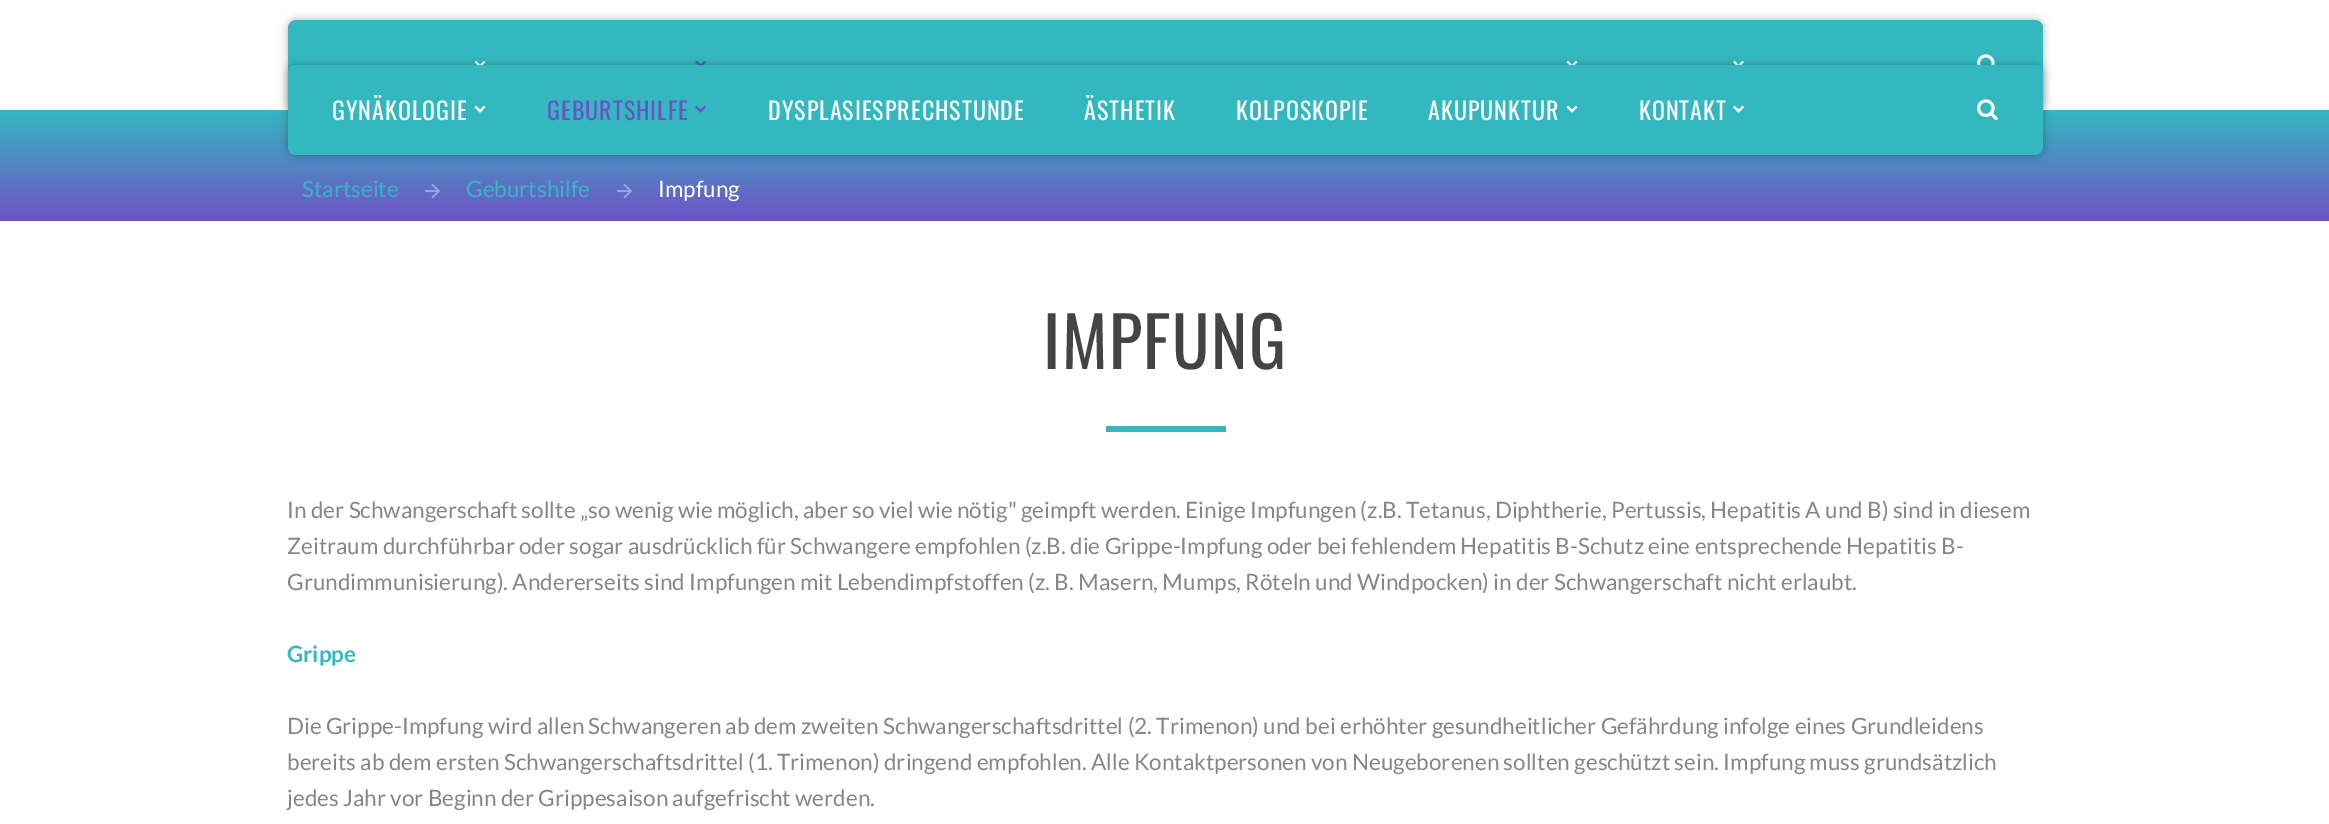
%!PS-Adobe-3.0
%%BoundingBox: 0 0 2329 824
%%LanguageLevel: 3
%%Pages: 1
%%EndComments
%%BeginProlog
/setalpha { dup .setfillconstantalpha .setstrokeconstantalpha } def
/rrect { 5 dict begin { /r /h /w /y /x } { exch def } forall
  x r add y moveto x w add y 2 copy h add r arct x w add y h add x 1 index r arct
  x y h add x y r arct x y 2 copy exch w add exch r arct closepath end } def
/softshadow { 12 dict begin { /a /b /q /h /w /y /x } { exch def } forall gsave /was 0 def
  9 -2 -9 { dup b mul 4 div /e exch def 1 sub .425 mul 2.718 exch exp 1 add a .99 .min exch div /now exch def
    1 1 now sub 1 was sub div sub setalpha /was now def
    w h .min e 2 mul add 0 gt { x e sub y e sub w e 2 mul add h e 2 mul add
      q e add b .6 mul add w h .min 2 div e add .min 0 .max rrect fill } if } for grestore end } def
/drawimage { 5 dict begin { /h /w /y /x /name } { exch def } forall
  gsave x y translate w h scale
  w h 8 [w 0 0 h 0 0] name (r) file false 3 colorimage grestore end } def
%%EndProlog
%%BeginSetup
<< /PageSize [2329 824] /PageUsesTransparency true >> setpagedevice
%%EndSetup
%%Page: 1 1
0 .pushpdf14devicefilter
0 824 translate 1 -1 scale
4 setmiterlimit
1 setgray
0 0 2329 824 rectfill
gsave newpath 0 110 moveto 2329 110 lineto 2329 221 lineto 0 221 lineto closepath clip newpath
<< /ShadingType 2 /ColorSpace /DeviceRGB /Coords [1165 109 1165 221] /Extend [true true] /Function << /FunctionType 2 /Domain [0 1] /C0 [0.204 0.722 0.753] /C1 [0.435 0.318 0.78] /N 1 >> >> shfill grestore
0 setgray
288 20 1755 90 8 4.5 0.3 softshadow
0.204 0.722 0.753 setrgbcolor
288 20 1755 90 8 rrect fill
(images/1.raw) 474 60 12 5 drawimage
(images/2.raw) 695 60 11 5 drawimage
(images/1.raw) 1566 60 12 5 drawimage
(images/3.raw) 1733 60 11 5 drawimage
(images/4.raw) 1977 54 18 11 drawimage
0 setgray
288 65 1755 90 8 4.5 0.3 softshadow
0.204 0.722 0.753 setrgbcolor
288 65 1755 90 8 rrect fill
(images/5.raw) 474 105 12 8 drawimage
(images/6.raw) 695 105 11 8 drawimage
(images/5.raw) 1566 105 12 8 drawimage
(images/7.raw) 1733 105 11 8 drawimage
(images/8.raw) 1977 99 21 22 drawimage
(images/9.raw) 425 183 15 16 drawimage
(images/9.raw) 617 183 15 16 drawimage
1106 426 120 6 rectfill
/Oswald-Regular [24 0 0 -24 0 0] selectfont
1 setgray
332 120 moveto 1 0 (GYNÄKOLOGIE) ashow
0.435 0.318 0.78 setrgbcolor
547 120 moveto 1 0 (GEBURTSHILFE) ashow
1 setgray
768 120 moveto 1 0 (DYSPLASIESPRECHSTUNDE) ashow
1084 120 moveto 1 0 (ÄSTHETIK) ashow
1236 120 moveto 1 0 (KOLPOSKOPIE) ashow
1428 120 moveto 1 0 (AKUPUNKTUR) ashow
1639 120 moveto 1 0 (KONTAKT) ashow
/Lato-Regular [22.5 0 0 -22.5 0 0] selectfont
0.204 0.722 0.753 setrgbcolor
302 197 moveto (Startseite) show
466 197 moveto (Geburtshilfe) show
1 setgray
658 197 moveto (Impfung) show
/Oswald-Regular [69 0 0 -69 0 0] selectfont
0.263 0.267 0.271 setrgbcolor
1043 369 moveto 1.5 0 (IMPFUNG) ashow
/Lato-Regular [22.5 0 0 -22.5 0 0] selectfont
0.525 setgray
287 518 moveto (In der Schwangerschaft sollte „so wenig wie möglich, aber so viel wie nötig" geimpft werden. Einige Impfungen \(z.B. Tetanus, Diphtherie, Pertussis, Hepatitis A und B\) sind in diesem) show
287 554 moveto (Zeitraum durchführbar oder sogar ausdrücklich für Schwangere empfohlen \(z.B. die Grippe-Impfung oder bei fehlendem Hepatitis B-Schutz eine entsprechende Hepatitis B-) show
287 590 moveto (Grundimmunisierung\). Andererseits sind Impfungen mit Lebendimpfstoffen \(z. B. Masern, Mumps, Röteln und Windpocken\) in der Schwangerschaft nicht erlaubt.) show
/Lato-Bold [22.5 0 0 -22.5 0 0] selectfont
0.204 0.722 0.753 setrgbcolor
287 662 moveto (Grippe) show
/Lato-Regular [22.5 0 0 -22.5 0 0] selectfont
0.525 setgray
287 734 moveto (Die Grippe-Impfung wird allen Schwangeren ab dem zweiten Schwangerschaftsdrittel \(2. Trimenon\) und bei erhöhter gesundheitlicher Gefährdung infolge eines Grundleidens) show
287 770 moveto (bereits ab dem ersten Schwangerschaftsdrittel \(1. Trimenon\) dringend empfohlen. Alle Kontaktpersonen von Neugeborenen sollten geschützt sein. Impfung muss grundsätzlich) show
287 806 moveto (jedes Jahr vor Beginn der Grippesaison aufgefrischt werden.) show
.poppdf14devicefilter showpage
%%EOF
